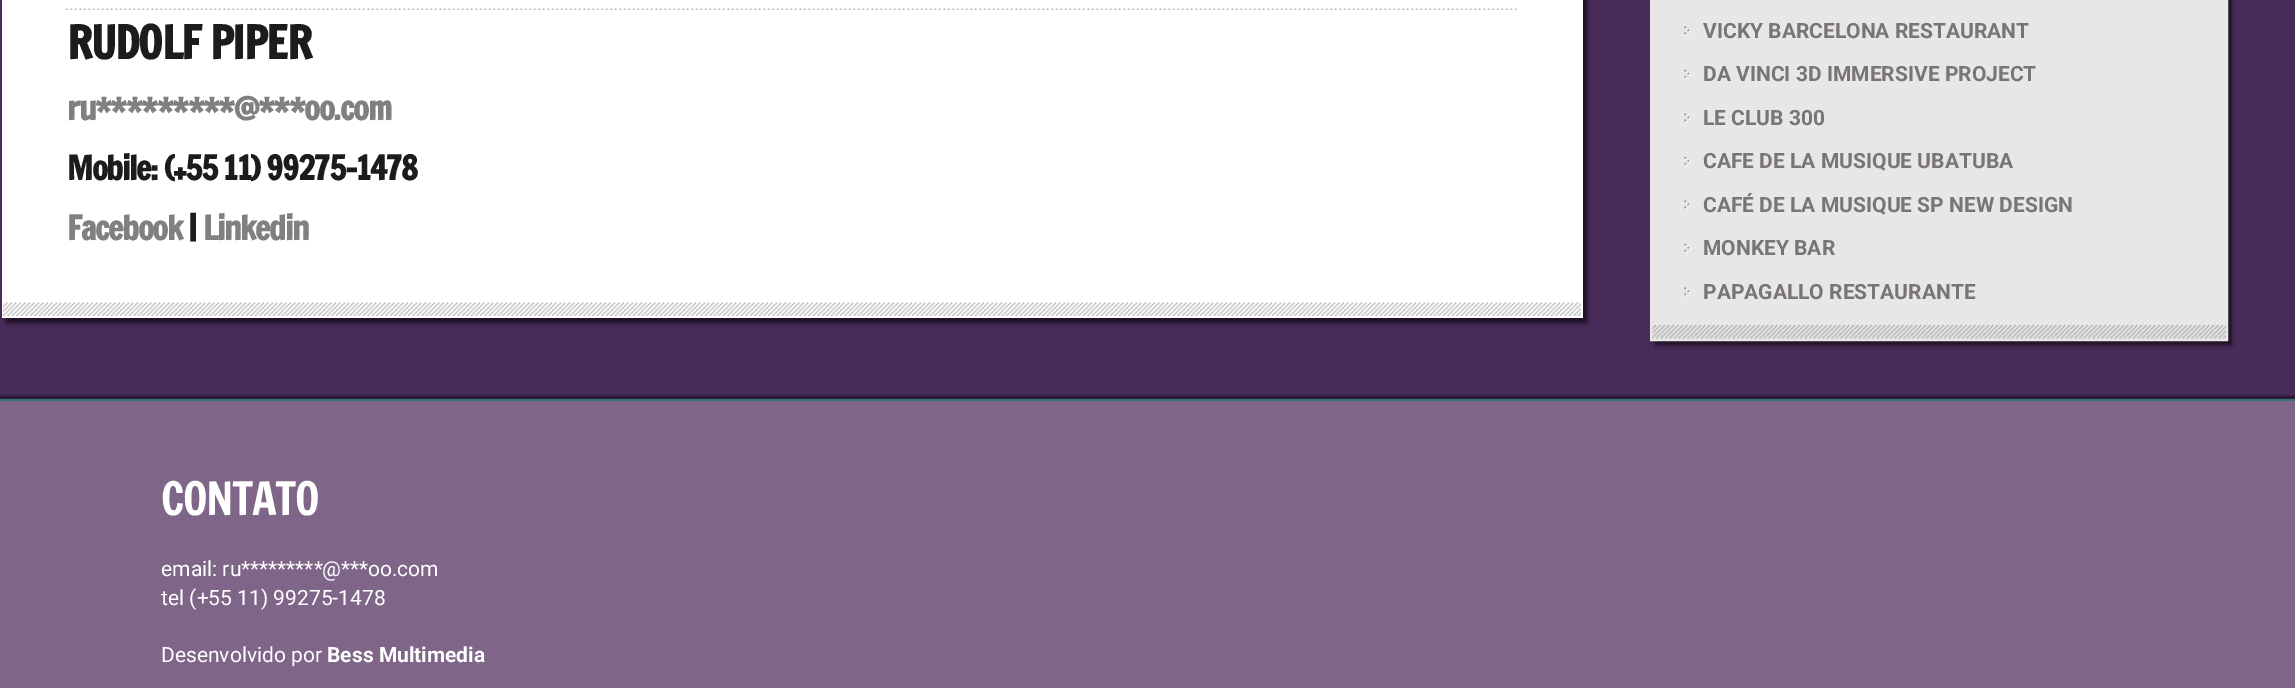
%!PS-Adobe-3.0
%%BoundingBox: 0 0 2295 688
%%LanguageLevel: 3
%%Pages: 1
%%EndComments
%%BeginProlog
/setalpha { dup .setfillconstantalpha .setstrokeconstantalpha } def
/rrect { 5 dict begin { /r /h /w /y /x } { exch def } forall
  x r add y moveto x w add y 2 copy h add r arct x w add y h add x 1 index r arct
  x y h add x y r arct x y 2 copy exch w add exch r arct closepath end } def
/softshadow { 12 dict begin { /a /b /q /h /w /y /x } { exch def } forall gsave /was 0 def
  9 -2 -9 { dup b mul 4 div /e exch def 1 sub .425 mul 2.718 exch exp 1 add a .99 .min exch div /now exch def
    1 1 now sub 1 was sub div sub setalpha /was now def
    w h .min e 2 mul add 0 gt { x e sub y e sub w e 2 mul add h e 2 mul add
      q e add b .6 mul add w h .min 2 div e add .min 0 .max rrect fill } if } for grestore end } def
/drawimage { 5 dict begin { /h /w /y /x /name } { exch def } forall
  gsave x y translate w h scale
  w h 8 [w 0 0 h 0 0] name (r) file false 3 colorimage grestore end } def
%%EndProlog
%%BeginSetup
<< /PageSize [2295 688] /PageUsesTransparency true >> setpagedevice
%%EndSetup
%%Page: 1 1
0 .pushpdf14devicefilter
0 688 translate 1 -1 scale
4 setmiterlimit
0.498 0.4 0.537 setrgbcolor
0 0 2295 688 rectfill
0.278 0.169 0.349 setrgbcolor
0 0 2295 399 rectfill
0 setgray
6 -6 1581 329 0 2 0.6 softshadow
1 setgray
2 0 1581 318 rectfill
(images/1.raw) 3 302 1578 14 drawimage
(images/2.raw) 66 8 1451 2 drawimage
0 setgray
1655 -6 577 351 0 2 0.6 softshadow
0.906 setgray
1652 0 574 339 rectfill
(images/3.raw) 1652 325 574 14 drawimage
2 setlinewidth
1651 -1 576 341 rectstroke
(images/4.raw) 1684 26 7 10 drawimage
(images/5.raw) 1684 70 7 9 drawimage
(images/4.raw) 1684 113 7 10 drawimage
(images/5.raw) 1684 157 7 9 drawimage
(images/4.raw) 1684 200 7 10 drawimage
(images/5.raw) 1684 244 7 9 drawimage
(images/4.raw) 1684 287 7 10 drawimage
(images/6.raw) 0 394 2295 5 drawimage
0.2 0.459 0.467 setrgbcolor
0 399 2295 2 rectfill
/FrancoisOne-Bold [45 0 0 -45 0 0] selectfont
0.11 setgray
67 59 moveto -1.5 0 (RUDOLF PIPER) ashow
/FrancoisOne-Bold [33 0 0 -33 0 0] selectfont
0.502 setgray
67 120 moveto -1.5 0 (ru) ashow
234 120 moveto -1.5 0 (@***) ashow
95 120 moveto -1.5 0 (*********) ashow
304 120 moveto -1.5 0 (oo.com) ashow
0.11 setgray
67 180 moveto -1.5 0 (Mobile: \(+55 11\) 99275-1478) ashow
0.502 setgray
67 240 moveto -1.5 0 (Facebook) ashow
0.11 setgray
188 240 moveto -1.5 0 (|) ashow
0.502 setgray
203 240 moveto -1.5 0 (Linkedin) ashow
/Roboto-Bold [21 0 0 -21 0 0] selectfont
0.478 0.459 0.459 setrgbcolor
1703 38 moveto (VICKY BARCELONA RESTAURANT) show
1703 81 moveto (DA VINCI 3D IMMERSIVE PROJECT) show
1703 125 moveto (LE CLUB 300) show
1703 168 moveto (CAFE DE LA MUSIQUE UBATUBA) show
1703 212 moveto (CAFÉ DE LA MUSIQUE SP NEW DESIGN) show
1703 255 moveto (MONKEY BAR) show
1703 299 moveto (PAPAGALLO RESTAURANTE) show
/FrancoisOne-Regular [45 0 0 -45 0 0] selectfont
1 setgray
161 515 moveto -1.5 0 (CONTATO) ashow
/Roboto-Regular [21 0 0 -21 0 0] selectfont
161 576 moveto (email: ru*********) show
322 576 moveto (@***) show
368 576 moveto (oo.com) show
161 605 moveto (tel \(+55 11\) 99275-1478) show
161 662 moveto (Desenvolvido por) show
/Roboto-Bold [21 0 0 -21 0 0] selectfont
327 662 moveto (Bess Multimedia) show
.poppdf14devicefilter showpage
%%EOF
